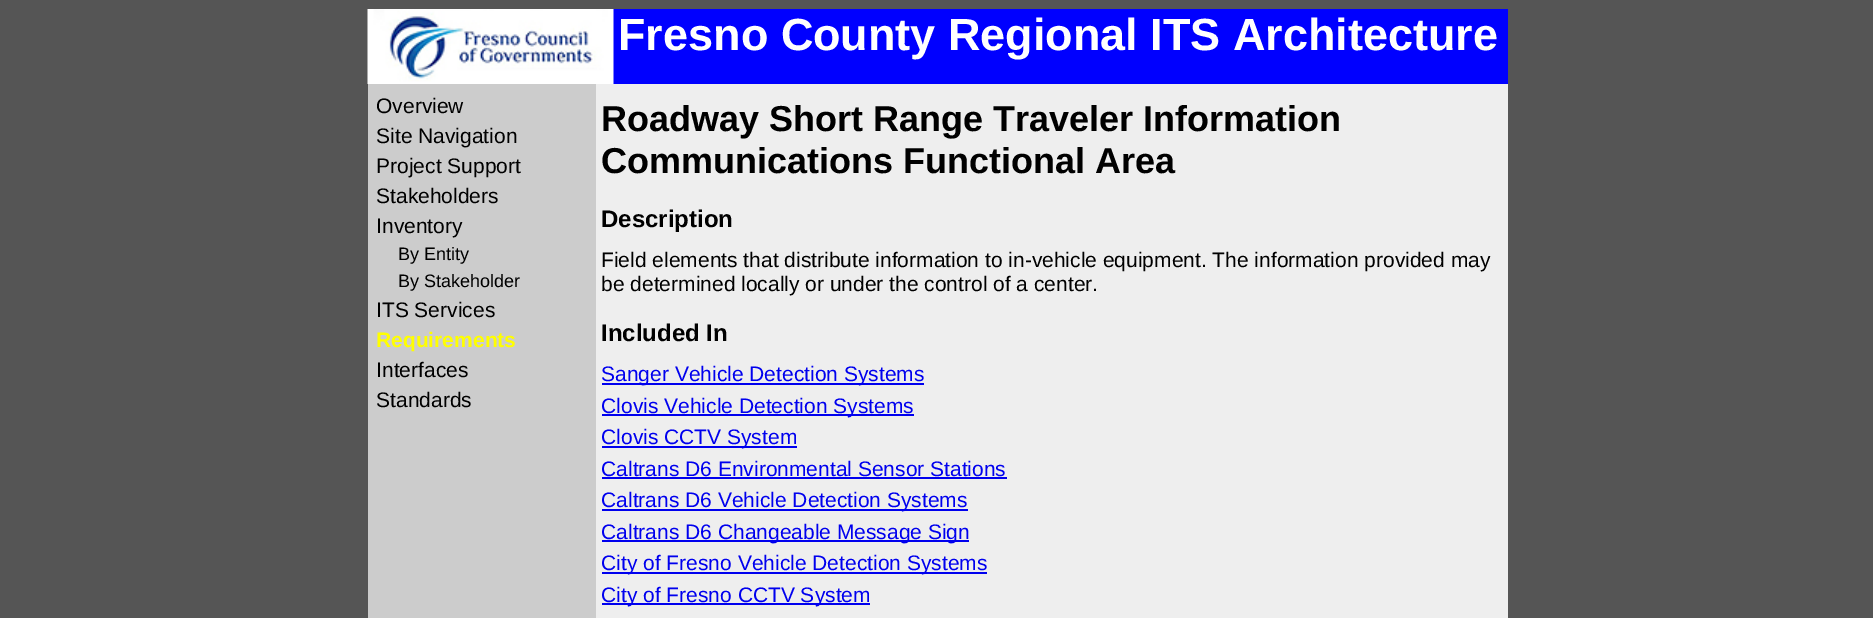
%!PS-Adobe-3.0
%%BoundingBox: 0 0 1873 618
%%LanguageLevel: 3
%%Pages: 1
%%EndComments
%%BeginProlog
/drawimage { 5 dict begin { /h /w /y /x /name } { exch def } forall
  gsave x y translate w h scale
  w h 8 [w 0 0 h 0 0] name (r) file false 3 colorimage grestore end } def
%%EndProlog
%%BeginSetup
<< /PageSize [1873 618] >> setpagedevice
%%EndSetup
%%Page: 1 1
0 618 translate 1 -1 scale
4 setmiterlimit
0.333 setgray
0 0 1873 618 rectfill
0.8 setgray
368 84 228 534 rectfill
0 0 1 setrgbcolor
613 9 895 75 rectfill
(images/1.raw) 367 9 247 75 drawimage
0.933 setgray
596 84 912 534 rectfill
0 0 0.933 setrgbcolor
602 383 322 2 rectfill
602 414 312 2 rectfill
602 446 195 2 rectfill
602 477 405 2 rectfill
602 509 366 2 rectfill
602 540 367 2 rectfill
602 572 385 2 rectfill
602 603 268 2 rectfill
/LiberationSans-Bold [45 0 0 -45 0 0] selectfont
1 setgray
618 50 moveto (Fresno County Regional ITS Architecture) show
/LiberationSans-Regular [21 0 0 -21 0 0] selectfont
0 setgray
376 113 moveto (Overview) show
376 143 moveto (Site Navigation) show
376 173 moveto (Project Support) show
376 203 moveto (Stakeholders) show
376 233 moveto (Inventory) show
/LiberationSans-Regular [18 0 0 -18 0 0] selectfont
398 260 moveto (By Entity) show
398 287 moveto (By Stakeholder) show
/LiberationSans-Regular [21 0 0 -21 0 0] selectfont
376 317 moveto (ITS Services) show
/LiberationSans-Bold [21 0 0 -21 0 0] selectfont
1 1 0 setrgbcolor
376 347 moveto (Requirements) show
/LiberationSans-Regular [21 0 0 -21 0 0] selectfont
0 setgray
376 377 moveto (Interfaces) show
376 407 moveto (Standards) show
/LiberationSans-Bold [36 0 0 -36 0 0] selectfont
601 131 moveto (Roadway Short Range Traveler Information) show
601 173 moveto (Communications Functional Area) show
/LiberationSans-Bold [24 0 0 -24 0 0] selectfont
601 227 moveto (Description) show
/LiberationSans-Regular [21 0 0 -21 0 0] selectfont
601 267 moveto (Field elements that distribute information to in-vehicle equipment. The information provided may) show
601 291 moveto (be determined locally or under the control of a center.) show
/LiberationSans-Bold [24 0 0 -24 0 0] selectfont
601 341 moveto (Included In) show
/LiberationSans-Regular [21 0 0 -21 0 0] selectfont
0 0 0.933 setrgbcolor
601 381 moveto (Sanger Vehicle Detection Systems) show
601 413 moveto (Clovis Vehicle Detection Systems) show
601 444 moveto (Clovis CCTV System) show
601 476 moveto (Caltrans D6 Environmental Sensor Stations) show
601 507 moveto (Caltrans D6 Vehicle Detection Systems) show
601 539 moveto (Caltrans D6 Changeable Message Sign) show
601 570 moveto (City of Fresno Vehicle Detection Systems) show
601 602 moveto (City of Fresno CCTV System) show
showpage
%%EOF
